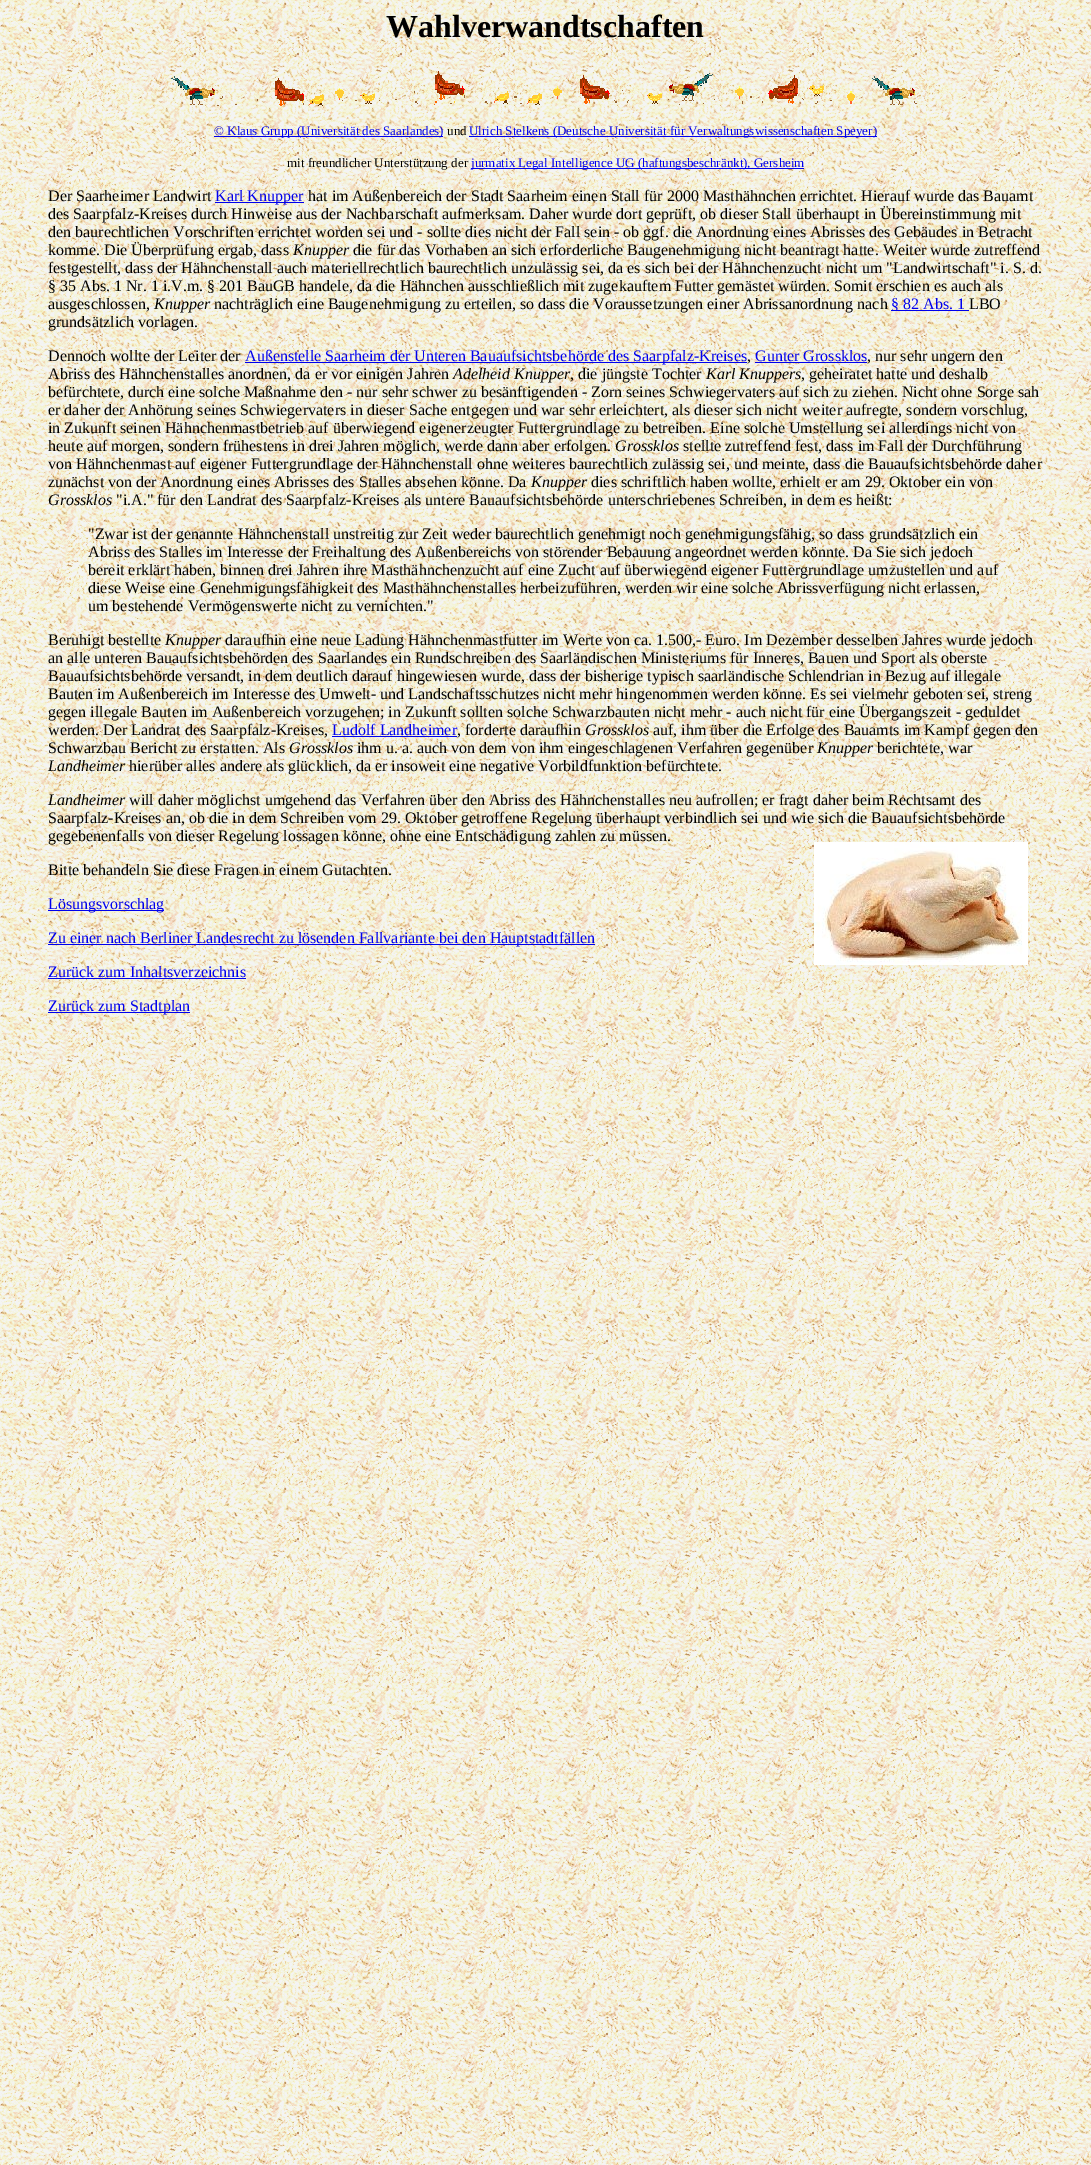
%!PS-Adobe-3.0
%%BoundingBox: 0 0 1091 2165
%%LanguageLevel: 3
%%Pages: 1
%%EndComments
%%BeginProlog
/drawimage { 5 dict begin { /h /w /y /x /name } { exch def } forall
  gsave x y translate w h scale
  w h 8 [w 0 0 h 0 0] name (r) file false 3 colorimage grestore end } def
%%EndProlog
%%BeginSetup
<< /PageSize [1091 2165] >> setpagedevice
%%EndSetup
%%Page: 1 1
0 2165 translate 1 -1 scale
4 setmiterlimit
1 setgray
0 0 1091 2165 rectfill
(images/1.raw) 0 0 1091 2165 drawimage
(images/2.raw) 171 71 746 35 drawimage
0 0 0.933 setrgbcolor
214 136 229 1 rectfill
469 136 408 1 rectfill
471 168 333 1 rectfill
215 202 89 1 rectfill
891 310 78 1 rectfill
245 362 502 1 rectfill
755 362 112 1 rectfill
332 736 125 1 rectfill
(images/3.raw) 814 842 214 123 drawimage
48 910 116 1 rectfill
48 944 547 1 rectfill
48 978 198 1 rectfill
48 1012 142 1 rectfill
/LiberationSerif-Bold [32 0 0 -32 0 0] selectfont
0 setgray
386 37 moveto (Wahlverwandtschaften) show
/LiberationSerif-Regular [13 0 0 -13 0 0] selectfont
0 0 0.933 setrgbcolor
214 135 moveto (© Klaus Grupp \(Universität des Saarlandes\)) show
0 setgray
447 135 moveto (und) show
0 0 0.933 setrgbcolor
469 135 moveto (Ulrich Stelkens \(Deutsche Universität für Verwaltungswissenschaften Speyer\)) show
0 setgray
287 167 moveto (mit freundlicher Unterstützung der) show
0 0 0.933 setrgbcolor
471 167 moveto (jurmatix Legal Intelligence UG \(haftungsbeschränkt\), Gersheim) show
/LiberationSerif-Regular [16 0 0 -16 0 0] selectfont
0 setgray
48 201 moveto (Der Saarheimer Landwirt) show
0 0 0.933 setrgbcolor
215 201 moveto (Karl Knupper) show
0 setgray
308 201 moveto (hat im Außenbereich der Stadt Saarheim einen Stall für 2000 Masthähnchen errichtet. Hierauf wurde das Bauamt) show
48 219 moveto (des Saarpfalz-Kreises durch Hinweise aus der Nachbarschaft aufmerksam. Daher wurde dort geprüft, ob dieser Stall überhaupt in Übereinstimmung mit) show
48 237 moveto (den baurechtlichen Vorschriften errichtet worden sei und - sollte dies nicht der Fall sein - ob ggf. die Anordnung eines Abrisses des Gebäudes in Betracht) show
48 255 moveto (komme. Die Überprüfung ergab, dass) show
/LiberationSerif-Italic [16 0 0 -16 0 0] selectfont
293 255 moveto (Knupper) show
/LiberationSerif-Regular [16 0 0 -16 0 0] selectfont
353 255 moveto (die für das Vorhaben an sich erforderliche Baugenehmigung nicht beantragt hatte. Weiter wurde zutreffend) show
48 273 moveto (festgestellt, dass der Hähnchenstall auch materiellrechtlich baurechtlich unzulässig sei, da es sich bei der Hähnchenzucht nicht um "Landwirtschaft" i. S. d.) show
48 291 moveto (§ 35 Abs. 1 Nr. 1 i.V.m. § 201 BauGB handele, da die Hähnchen ausschließlich mit zugekauftem Futter gemästet würden. Somit erschien es auch als) show
48 309 moveto (ausgeschlossen,) show
/LiberationSerif-Italic [16 0 0 -16 0 0] selectfont
154 309 moveto (Knupper) show
/LiberationSerif-Regular [16 0 0 -16 0 0] selectfont
214 309 moveto (nachträglich eine Baugenehmigung zu erteilen, so dass die Voraussetzungen einer Abrissanordnung nach) show
0 0 0.933 setrgbcolor
891 309 moveto (§ 82 Abs. 1) show
0 setgray
969 309 moveto (LBO) show
48 327 moveto (grundsätzlich vorlagen.) show
48 361 moveto (Dennoch wollte der Leiter der) show
0 0 0.933 setrgbcolor
245 361 moveto (Außenstelle Saarheim der Unteren Bauaufsichtsbehörde des Saarpfalz-Kreises) show
0 setgray
747 361 moveto (,) show
0 0 0.933 setrgbcolor
755 361 moveto (Gunter Grossklos) show
0 setgray
867 361 moveto (, nur sehr ungern den) show
48 379 moveto (Abriss des Hähnchenstalles anordnen, da er vor einigen Jahren) show
/LiberationSerif-Italic [16 0 0 -16 0 0] selectfont
453 379 moveto (Adelheid Knupper) show
/LiberationSerif-Regular [16 0 0 -16 0 0] selectfont
570 379 moveto (, die jüngste Tochter) show
/LiberationSerif-Italic [16 0 0 -16 0 0] selectfont
706 379 moveto (Karl Knuppers) show
/LiberationSerif-Regular [16 0 0 -16 0 0] selectfont
801 379 moveto (, geheiratet hatte und deshalb) show
48 397 moveto (befürchtete, durch eine solche Maßnahme den - nur sehr schwer zu besänftigenden - Zorn seines Schwiegervaters auf sich zu ziehen. Nicht ohne Sorge sah) show
48 415 moveto (er daher der Anhörung seines Schwiegervaters in dieser Sache entgegen und war sehr erleichtert, als dieser sich nicht weiter aufregte, sondern vorschlug,) show
48 433 moveto (in Zukunft seinen Hähnchenmastbetrieb auf überwiegend eigenerzeugter Futtergrundlage zu betreiben. Eine solche Umstellung sei allerdings nicht von) show
48 451 moveto (heute auf morgen, sondern frühestens in drei Jahren möglich, werde dann aber erfolgen.) show
/LiberationSerif-Italic [16 0 0 -16 0 0] selectfont
615 451 moveto (Grossklos) show
/LiberationSerif-Regular [16 0 0 -16 0 0] selectfont
683 451 moveto (stellte zutreffend fest, dass im Fall der Durchführung) show
48 469 moveto (von Hähnchenmast auf eigener Futtergrundlage der Hähnchenstall ohne weiteres baurechtlich zulässig sei, und meinte, dass die Bauaufsichtsbehörde daher) show
48 487 moveto (zunächst von der Anordnung eines Abrisses des Stalles absehen könne. Da) show
/LiberationSerif-Italic [16 0 0 -16 0 0] selectfont
531 487 moveto (Knupper) show
/LiberationSerif-Regular [16 0 0 -16 0 0] selectfont
591 487 moveto (dies schriftlich haben wollte, erhielt er am 29. Oktober ein von) show
/LiberationSerif-Italic [16 0 0 -16 0 0] selectfont
48 505 moveto (Grossklos) show
/LiberationSerif-Regular [16 0 0 -16 0 0] selectfont
116 505 moveto ("i.A." für den Landrat des Saarpfalz-Kreises als untere Bauaufsichtsbehörde unterschriebenes Schreiben, in dem es heißt:) show
88 539 moveto ("Zwar ist der genannte Hähnchenstall unstreitig zur Zeit weder baurechtlich genehmigt noch genehmigungsfähig, so dass grundsätzlich ein) show
88 557 moveto (Abriss des Stalles im Interesse der Freihaltung des Außenbereichs von störender Bebauung angeordnet werden könnte. Da Sie sich jedoch) show
88 575 moveto (bereit erklärt haben, binnen drei Jahren ihre Masthähnchenzucht auf eine Zucht auf überwiegend eigener Futtergrundlage umzustellen und auf) show
88 593 moveto (diese Weise eine Genehmigungsfähigkeit des Masthähnchenstalles herbeizuführen, werden wir eine solche Abrissverfügung nicht erlassen,) show
88 611 moveto (um bestehende Vermögenswerte nicht zu vernichten.") show
48 645 moveto (Beruhigt bestellte) show
/LiberationSerif-Italic [16 0 0 -16 0 0] selectfont
165 645 moveto (Knupper) show
/LiberationSerif-Regular [16 0 0 -16 0 0] selectfont
225 645 moveto (daraufhin eine neue Ladung Hähnchenmastfutter im Werte von ca. 1.500,- Euro. Im Dezember desselben Jahres wurde jedoch) show
48 663 moveto (an alle unteren Bauaufsichtsbehörden des Saarlandes ein Rundschreiben des Saarländischen Ministeriums für Inneres, Bauen und Sport als oberste) show
48 681 moveto (Bauaufsichtsbehörde versandt, in dem deutlich darauf hingewiesen wurde, dass der bisherige typisch saarländische Schlendrian in Bezug auf illegale) show
48 699 moveto (Bauten im Außenbereich im Interesse des Umwelt- und Landschaftsschutzes nicht mehr hingenommen werden könne. Es sei vielmehr geboten sei, streng) show
48 717 moveto (gegen illegale Bauten im Außenbereich vorzugehen; in Zukunft sollten solche Schwarzbauten nicht mehr - auch nicht für eine Übergangszeit - geduldet) show
48 735 moveto (werden. Der Landrat des Saarpfalz-Kreises,) show
0 0 0.933 setrgbcolor
332 735 moveto (Ludolf Landheimer) show
0 setgray
457 735 moveto (, forderte daraufhin) show
/LiberationSerif-Italic [16 0 0 -16 0 0] selectfont
585 735 moveto (Grossklos) show
/LiberationSerif-Regular [16 0 0 -16 0 0] selectfont
653 735 moveto (auf, ihm über die Erfolge des Bauamts im Kampf gegen den) show
48 753 moveto (Schwarzbau Bericht zu erstatten. Als) show
/LiberationSerif-Italic [16 0 0 -16 0 0] selectfont
289 753 moveto (Grossklos) show
/LiberationSerif-Regular [16 0 0 -16 0 0] selectfont
357 753 moveto (ihm u. a. auch von dem von ihm eingeschlagenen Verfahren gegenüber) show
/LiberationSerif-Italic [16 0 0 -16 0 0] selectfont
817 753 moveto (Knupper) show
/LiberationSerif-Regular [16 0 0 -16 0 0] selectfont
877 753 moveto (berichtete, war) show
/LiberationSerif-Italic [16 0 0 -16 0 0] selectfont
48 771 moveto (Landheimer) show
/LiberationSerif-Regular [16 0 0 -16 0 0] selectfont
129 771 moveto (hierüber alles andere als glücklich, da er insoweit eine negative Vorbildfunktion befürchtete.) show
/LiberationSerif-Italic [16 0 0 -16 0 0] selectfont
48 805 moveto (Landheimer) show
/LiberationSerif-Regular [16 0 0 -16 0 0] selectfont
129 805 moveto (will daher möglichst umgehend das Verfahren über den Abriss des Hähnchenstalles neu aufrollen; er fragt daher beim Rechtsamt des) show
48 823 moveto (Saarpfalz-Kreises an, ob die in dem Schreiben vom 29. Oktober getroffene Regelung überhaupt verbindlich sei und wie sich die Bauaufsichtsbehörde) show
48 841 moveto (gegebenenfalls von dieser Regelung lossagen könne, ohne eine Entschädigung zahlen zu müssen.) show
48 875 moveto (Bitte behandeln Sie diese Fragen in einem Gutachten.) show
0 0 0.933 setrgbcolor
48 909 moveto (Lösungsvorschlag) show
48 943 moveto (Zu einer nach Berliner Landesrecht zu lösenden Fallvariante bei den Hauptstadtfällen) show
48 977 moveto (Zurück zum Inhaltsverzeichnis) show
48 1011 moveto (Zurück zum Stadtplan) show
showpage
%%EOF
